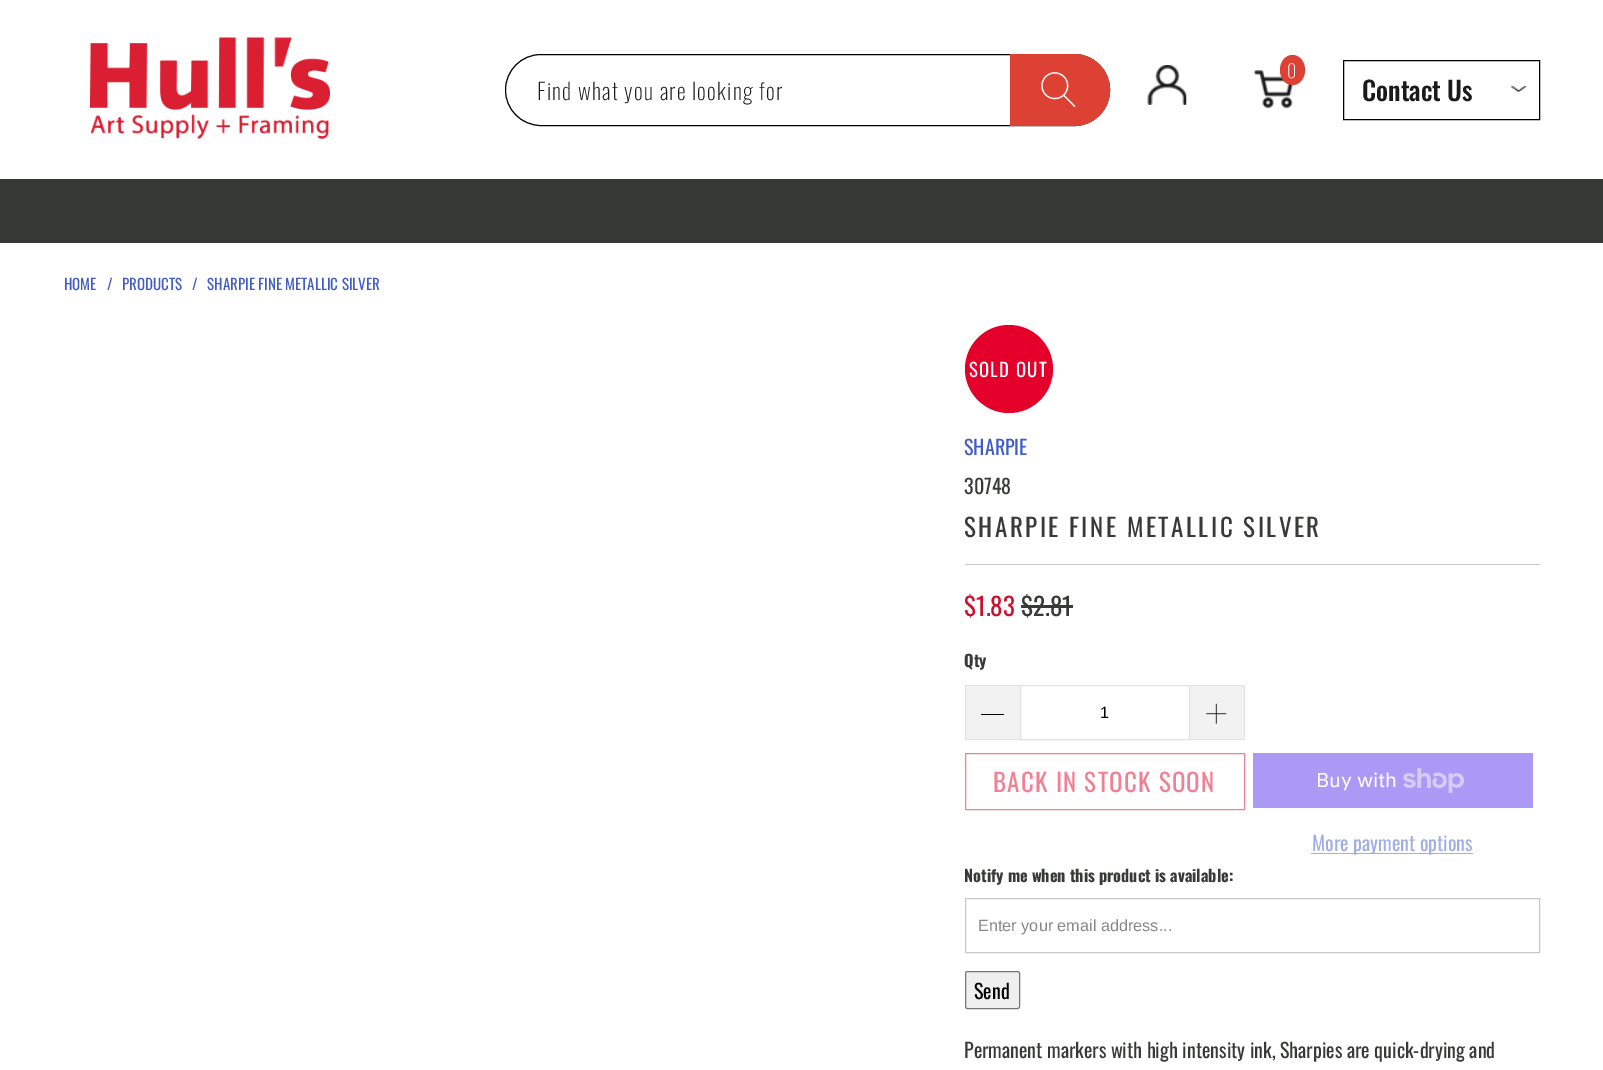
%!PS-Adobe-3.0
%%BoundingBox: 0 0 1603 1070
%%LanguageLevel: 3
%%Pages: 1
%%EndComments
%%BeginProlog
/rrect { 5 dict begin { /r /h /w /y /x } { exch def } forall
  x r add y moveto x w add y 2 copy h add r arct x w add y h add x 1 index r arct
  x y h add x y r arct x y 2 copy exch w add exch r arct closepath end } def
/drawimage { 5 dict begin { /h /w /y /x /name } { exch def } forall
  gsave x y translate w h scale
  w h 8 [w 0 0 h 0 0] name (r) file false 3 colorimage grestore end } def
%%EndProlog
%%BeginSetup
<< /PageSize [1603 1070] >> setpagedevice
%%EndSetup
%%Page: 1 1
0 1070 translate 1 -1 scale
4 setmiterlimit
1 setgray
0 0 1603 1070 rectfill
(images/1.raw) 90 37 240 102 drawimage
0 setgray
505.5 54.5 604 71 35.5 rrect stroke
0.863 0.255 0.2 setrgbcolor
newpath 1010 54 moveto 1074 54 lineto 1094 54 1110 70 1110 90 curveto 1110 110 1094 126 1074 126 curveto 1010 126 lineto closepath fill
(images/2.raw) 1041 72 35 36 drawimage
(images/3.raw) 1147 65 40 40 drawimage
(images/4.raw) 1253 70 41 39 drawimage
newpath 1292.5 55 moveto 1299.5 55 1305 61.5 1305 70 curveto 1305 78.5 1299.5 85 1292.5 85 curveto 1285.5 85 1280 78.5 1280 70 curveto 1280 61.5 1285.5 55 1292.5 55 curveto closepath fill
0 setgray
1343.5 60.5 196 59 rectstroke
(images/5.raw) 1510 85 18 8 drawimage
0.216 0.224 0.212 setrgbcolor
0 179 1603 64 rectfill
0.894 0 0.169 setrgbcolor
newpath 1009 369 44 0 360 arc closepath fill
0.784 setgray
965 564 575 1 rectfill
0.216 0.227 0.212 setrgbcolor
1021 605 52 3 rectfill
0.949 setgray
966 686 54 53 rectfill
0.886 setgray
965 685 55 1 rectfill
965 739 55 1 rectfill
965 685 1 55 rectfill
0 setgray
981 714 23 1 rectfill
0.886 setgray
1020.5 685.5 169 54 rectstroke
0.949 setgray
1190 686 54 53 rectfill
0.886 setgray
1190 685 55 1 rectfill
1244 685 1 55 rectfill
1190 739 55 1 rectfill
(images/6.raw) 1206 703 21 21 drawimage
0.949 0.502 0.584 setrgbcolor
965.5 753.5 279 56 rectstroke
0.667 0.6 0.961 setrgbcolor
1253 753 280 55 rectfill
(images/7.raw) 1403 768 62 25 drawimage
0.631 0.682 0.89 setrgbcolor
1311 853 162 1 rectfill
0.784 setgray
965.5 898.5 574 54 rectstroke
0.937 setgray
965.5 971.5 54 37 2 rrect gsave fill grestore
0.463 setgray
stroke
/Oswald-ExtraLight [22.5 0 0 -22.5 0 0] selectfont
0.102 setgray
537 100 moveto 1.25 0 (Find what you are looking for) ashow
/Oswald-ExtraLight [18 0 0 -18 0 0] selectfont
1 setgray
1287 78 moveto (0) show
/Oswald-Medium [26.25 0 0 -26.25 0 0] selectfont
0.102 setgray
1362 101 moveto (Contact Us) show
/Oswald-Regular [15 0 0 -15 0 0] selectfont
0.259 0.361 0.78 setrgbcolor
64 290 moveto (HOME) show
107 290 moveto (/) show
122 290 moveto (PRODUCTS) show
192 290 moveto (/) show
207 290 moveto (SHARPIE FINE METALLIC SILVER) show
/Oswald-Regular [18.75 0 0 -18.75 0 0] selectfont
1 setgray
969 377 moveto 1.25 0 (SOLD OUT) ashow
/Oswald-Regular [20 0 0 -20 0 0] selectfont
0.259 0.361 0.78 setrgbcolor
964 455 moveto (SHARPIE) show
0.216 0.227 0.212 setrgbcolor
964 494 moveto (30748) show
/Oswald-Regular [25 0 0 -25 0 0] selectfont
964 537 moveto 2.5 0 (SHARPIE FINE METALLIC SILVER) ashow
0.808 0.055 0.176 setrgbcolor
964 616 moveto ($1.83) show
0.216 0.227 0.212 setrgbcolor
1021 616 moveto ($2.81) show
/Oswald-Bold [16.25 0 0 -16.25 0 0] selectfont
964 667 moveto (Qty) show
/LiberationSans-Regular [16.25 0 0 -16.25 0 0] selectfont
0 setgray
1100 718 moveto (1) show
/Oswald-Regular [25 0 0 -25 0 0] selectfont
0.949 0.502 0.584 setrgbcolor
993 792 moveto 1.25 0 (BACK IN STOCK SOON) ashow
/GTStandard-Regular [20 0 0 -20 0 0] selectfont
1 setgray
1316 787 moveto (Buy with) show
/Oswald-Regular [20 0 0 -20 0 0] selectfont
0.631 0.682 0.89 setrgbcolor
1312 851 moveto (More payment options) show
/Oswald-Bold [16.25 0 0 -16.25 0 0] selectfont
0.216 0.227 0.212 setrgbcolor
964 882 moveto (Notify me when this product is available:) show
/LiberationSans-Regular [16.25 0 0 -16.25 0 0] selectfont
0.533 setgray
978 931 moveto (Enter your email address...) show
/Oswald-Regular [20 0 0 -20 0 0] selectfont
0 setgray
974 999 moveto (Send) show
0.216 0.227 0.212 setrgbcolor
964 1058 moveto (Permanent markers with high intensity ink, Sharpies are quick-drying and) show
showpage
%%EOF
